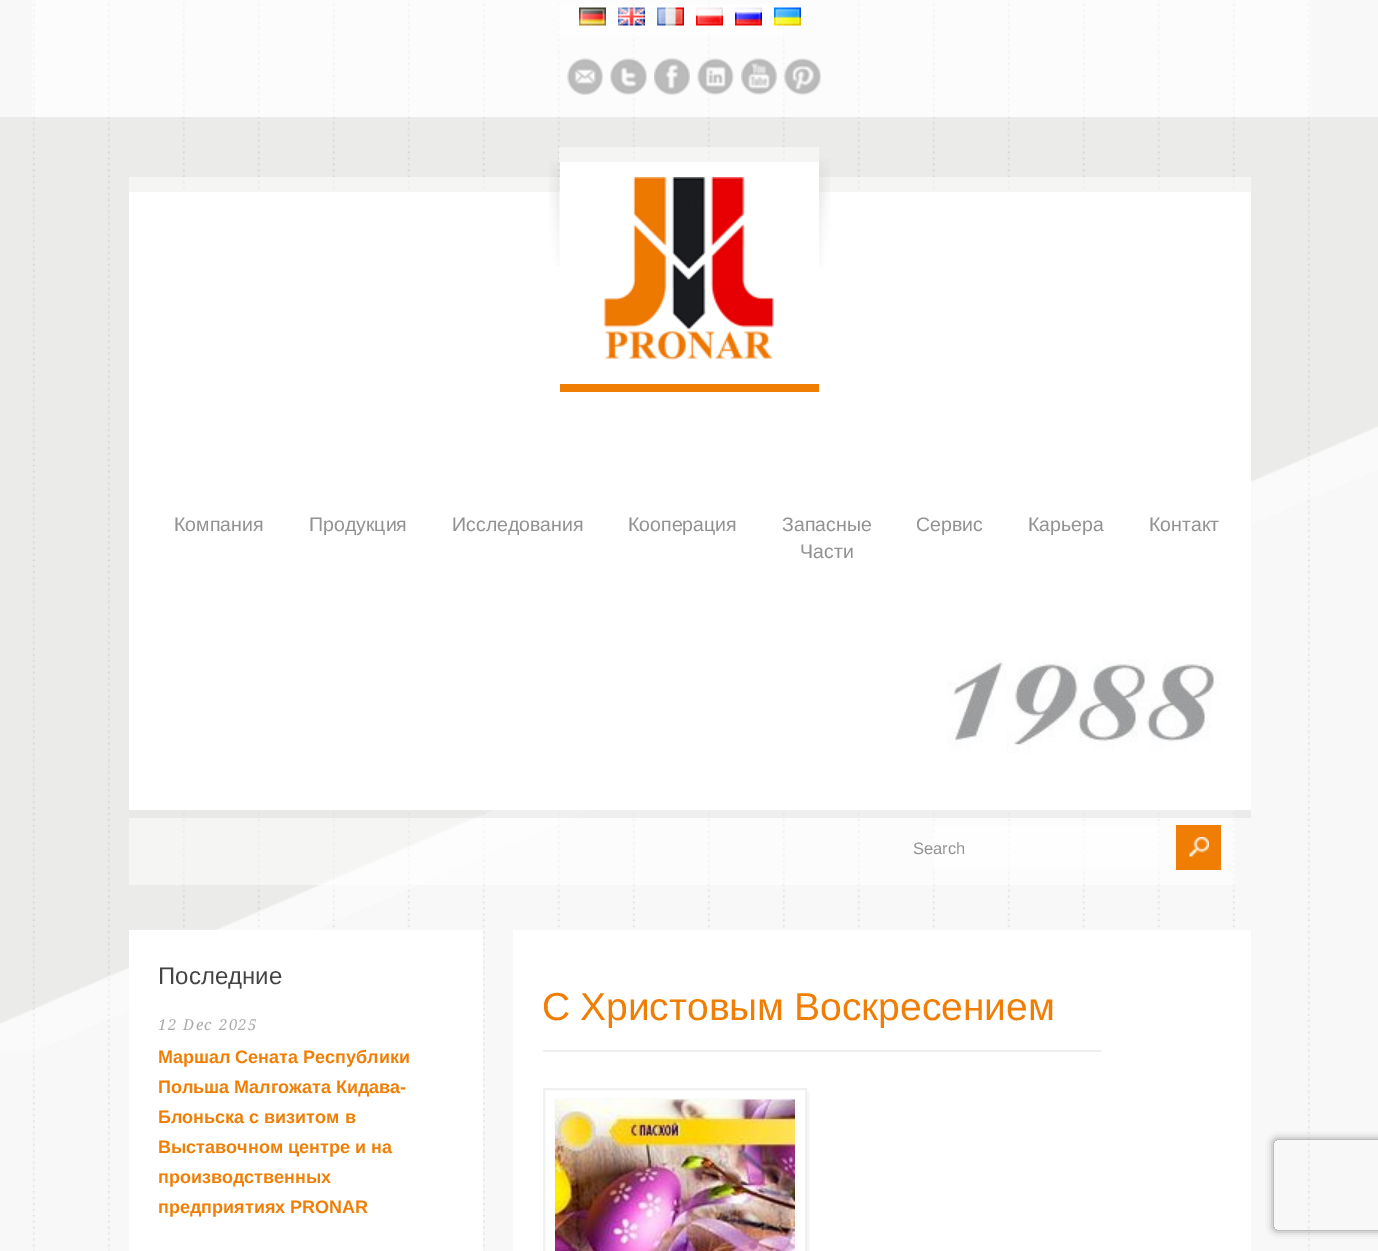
%!PS-Adobe-3.0
%%BoundingBox: 0 0 1378 1251
%%LanguageLevel: 3
%%Pages: 1
%%EndComments
%%BeginProlog
/setalpha { dup .setfillconstantalpha .setstrokeconstantalpha } def
/rrect { 5 dict begin { /r /h /w /y /x } { exch def } forall
  x r add y moveto x w add y 2 copy h add r arct x w add y h add x 1 index r arct
  x y h add x y r arct x y 2 copy exch w add exch r arct closepath end } def
/softshadow { 12 dict begin { /a /b /q /h /w /y /x } { exch def } forall gsave /was 0 def
  9 -2 -9 { dup b mul 4 div /e exch def 1 sub .425 mul 2.718 exch exp 1 add a .99 .min exch div /now exch def
    1 1 now sub 1 was sub div sub setalpha /was now def
    w h .min e 2 mul add 0 gt { x e sub y e sub w e 2 mul add h e 2 mul add
      q e add b .6 mul add w h .min 2 div e add .min 0 .max rrect fill } if } for grestore end } def
/drawimage { 5 dict begin { /h /w /y /x /name } { exch def } forall
  gsave x y translate w h scale
  w h 8 [w 0 0 h 0 0] name (r) file false 3 colorimage grestore end } def
%%EndProlog
%%BeginSetup
<< /PageSize [1378 1251] /PageUsesTransparency true >> setpagedevice
%%EndSetup
%%Page: 1 1
0 .pushpdf14devicefilter
0 1251 translate 1 -1 scale
4 setmiterlimit
1 setgray
0 0 1378 1251 rectfill
(images/1.raw) 0 0 1378 1251 drawimage
0.5 setalpha
32 0 1278 42 rectfill
558 4 227 32 rectfill
1 setalpha
(images/2.raw) 579 7 27 19 drawimage
(images/3.raw) 618 7 27 19 drawimage
(images/4.raw) 657 7 27 19 drawimage
(images/5.raw) 696 7 27 19 drawimage
(images/6.raw) 735 7 27 19 drawimage
(images/7.raw) 774 7 27 19 drawimage
0.5 setalpha
32 42 1278 75 rectfill
1 setalpha
(images/8.raw) 567 58 36 37 drawimage
(images/9.raw) 610 58 37 37 drawimage
(images/10.raw) 654 58 36 37 drawimage
(images/11.raw) 697 58 37 37 drawimage
(images/12.raw) 741 58 36 37 drawimage
(images/13.raw) 784 58 37 37 drawimage
(images/14.raw) 0 117 1378 934 drawimage
0.5 setalpha
129 177 1122 15 rectfill
1 setalpha
129 192 1122 618 rectfill
(images/15.raw) 549 161 11 105 drawimage
0.941 0.494 0.02 setrgbcolor
560 384 259 8 rectfill
0.5 setalpha
1 setgray
559 147 260 15 rectfill
1 setalpha
560 162 259 30 rectfill
(images/16.raw) 604 177 170 183 drawimage
(images/17.raw) 819 159 11 109 drawimage
(images/18.raw) 947 659 274 94 drawimage
0.5 setalpha
129 810 1106 75 rectfill
0.05 setalpha
0 setgray
129 810 1122 8 rectfill
0.5 setalpha
1 setgray
933 825 227 43 rectfill
1 setalpha
0.941 0.494 0.02 setrgbcolor
1176 825 45 45 rectfill
(images/19.raw) 1189 837 20 20 drawimage
1 setgray
129 930 354 321 rectfill
513 930 738 321 rectfill
0.933 setgray
543 1050 558 2 rectfill
gsave
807 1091 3 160 rectclip
0 setgray
546 1091 264 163 0 1 0.04 softshadow
grestore
0.941 setgray
2 setlinewidth
544 1089 262 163 rectstroke
0.984 setgray
555 1099 241 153 rectstroke
(images/20.raw) 555 1099 240 152 drawimage
gsave
newpath 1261 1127 moveto 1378 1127 lineto 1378 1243 lineto 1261 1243 lineto closepath 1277 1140 moveto 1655 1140 lineto 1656.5 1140 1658 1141.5 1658 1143 curveto 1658 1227 lineto 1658 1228.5 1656.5 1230 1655 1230 curveto 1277 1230 lineto 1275.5 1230 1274 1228.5 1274 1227 curveto 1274 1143 lineto 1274 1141.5 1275.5 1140 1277 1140 curveto closepath eoclip newpath
0.502 setgray
1274 1140 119 90 3 4 1 softshadow
grestore
/LiberationSans-Regular [19.5 0 0 -19.5 0 0] selectfont
0.573 setgray
174 531 moveto (Компания) show
309 531 moveto (Продукция) show
452 531 moveto (Исследования) show
628 531 moveto (Кооперация) show
782 531 moveto (Запасные) show
800 558 moveto (Части) show
916 531 moveto (Сервис) show
1028 531 moveto (Карьера) show
1149 531 moveto (Контакт) show
/LiberationSans-Regular [16.5 0 0 -16.5 0 0] selectfont
913 854 moveto (Search) show
/LiberationSans-Regular [24 0 0 -24 0 0] selectfont
0.267 setgray
158 984 moveto (Последние) show
/DroidSerif-Italic [15 0 0 -15 0 0] selectfont
0.667 setgray
158 1030 moveto 1.5 0 (12 Dec 2025) ashow
/LiberationSans-Bold [18 0 0 -18 0 0] selectfont
0.941 0.494 0.02 setrgbcolor
158 1063 moveto (Маршал Сената Республики) show
158 1093 moveto (Польша Малгожата Кидава-) show
158 1123 moveto (Блоньска с визитом в) show
158 1153 moveto (Выставочном центре и на) show
158 1183 moveto (производственных) show
158 1213 moveto (предприятиях PRONAR) show
/LiberationSans-Regular [39 0 0 -39 0 0] selectfont
542 1020 moveto -1 0 32 (С Христовым Воскресением) widthshow
.poppdf14devicefilter showpage
%%EOF
